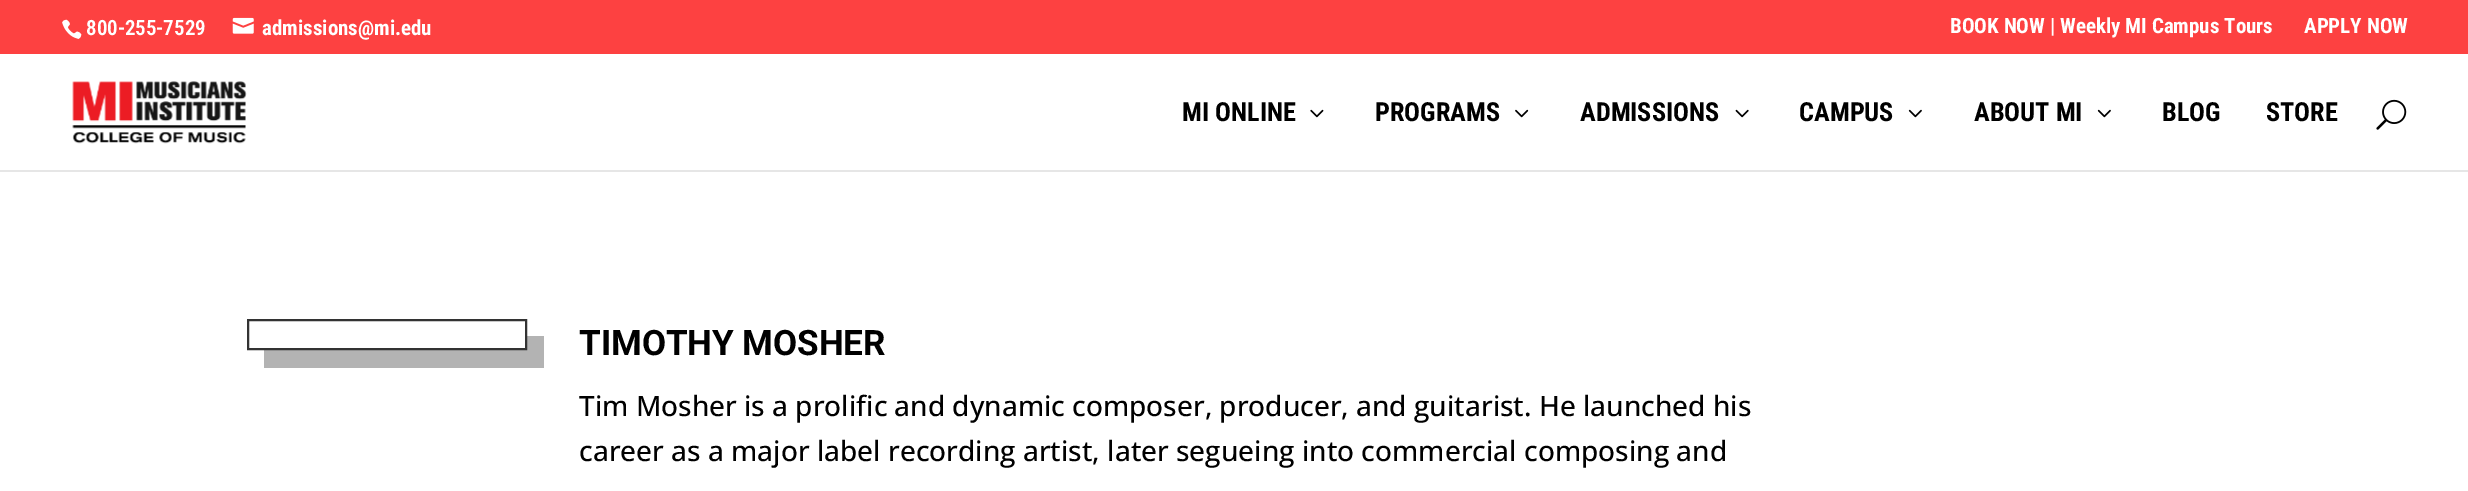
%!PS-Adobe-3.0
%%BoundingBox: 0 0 2468 491
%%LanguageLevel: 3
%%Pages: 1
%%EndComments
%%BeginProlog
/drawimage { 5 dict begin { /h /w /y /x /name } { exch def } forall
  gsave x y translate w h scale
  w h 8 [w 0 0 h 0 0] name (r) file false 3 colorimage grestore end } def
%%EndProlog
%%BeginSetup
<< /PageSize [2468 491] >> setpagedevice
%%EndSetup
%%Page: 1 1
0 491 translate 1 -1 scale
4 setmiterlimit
1 setgray
0 0 2468 491 rectfill
0.992 0.255 0.255 setrgbcolor
0 0 2468 54 rectfill
(images/1.raw) 62 19 20 20 drawimage
(images/2.raw) 232 17 22 17 drawimage
0.902 setgray
0 170 2468 2 rectfill
(images/3.raw) 72 81 175 63 drawimage
(images/4.raw) 1310 109 14 9 drawimage
(images/5.raw) 1515 109 14 9 drawimage
(images/6.raw) 1735 109 14 9 drawimage
(images/7.raw) 1908 109 14 9 drawimage
(images/7.raw) 2097 109 14 9 drawimage
(images/8.raw) 2376 99 31 31 drawimage
0.702 setgray
newpath 264 350 moveto 264 368 lineto 544 368 lineto 544 336 lineto 527 336 lineto 527 350 lineto closepath fill
0.2 setgray
2 setlinewidth
248 320 278 29 rectstroke
/RobotoCondensed-SemiBold [21 0 0 -21 0 0] selectfont
1 setgray
86 35 moveto (800-255-7529) show
/RobotoCondensed-Bold [21 0 0 -21 0 0] selectfont
262 35 moveto (admissions@mi.edu) show
1950 33 moveto (BOOK NOW | Weekly MI Campus Tours) show
2304 33 moveto (APPLY NOW) show
/RobotoCondensed-Bold [26.25 0 0 -26.25 0 0] selectfont
0 setgray
1182 121 moveto (MI ONLINE) show
1375 121 moveto (PROGRAMS) show
1580 121 moveto (ADMISSIONS) show
1799 121 moveto (CAMPUS) show
1974 121 moveto (ABOUT MI) show
2162 121 moveto (BLOG) show
2266 121 moveto (STORE) show
/Roboto-Bold [35 0 0 -35 0 0] selectfont
579 355 moveto (TIMOTHY MOSHER) show
/OpenSans-Medium [28 0 0 -28 0 0] selectfont
579 416 moveto (Tim Mosher is a prolific and dynamic composer, producer, and guitarist. He launched his) show
579 461 moveto (career as a major label recording artist, later segueing into commercial composing and) show
showpage
%%EOF
